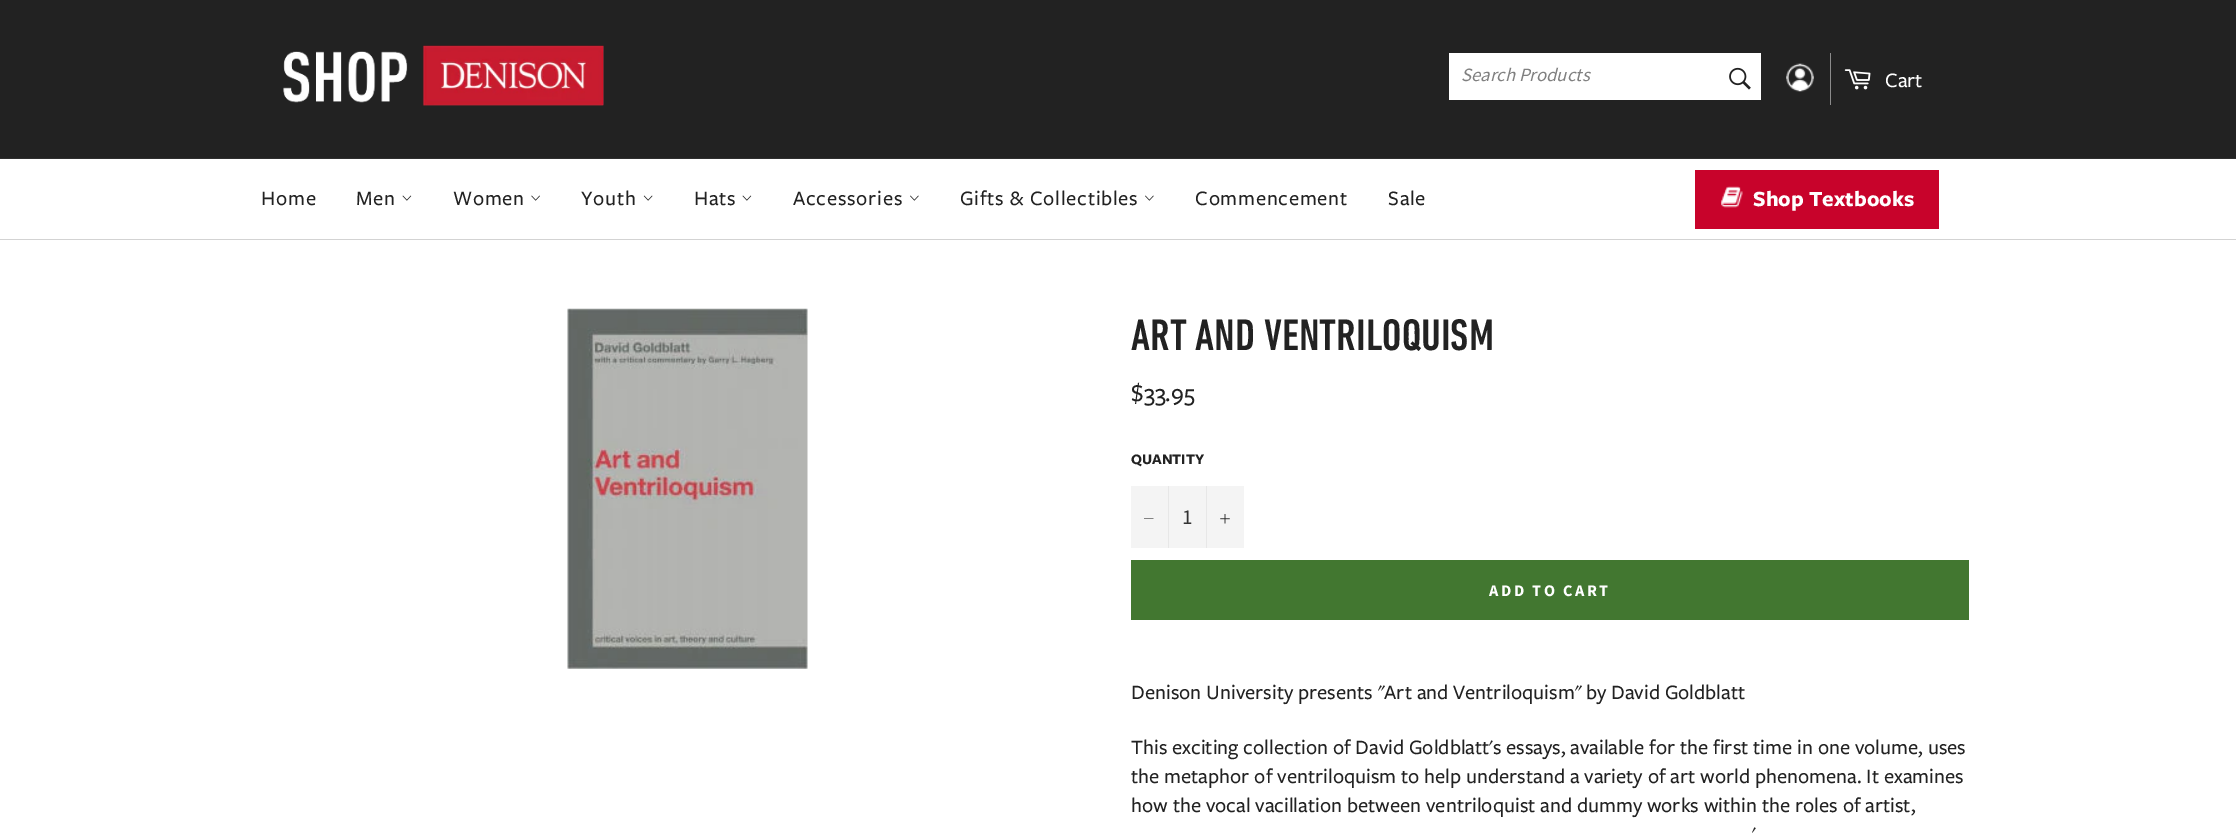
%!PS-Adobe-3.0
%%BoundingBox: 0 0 2236 834
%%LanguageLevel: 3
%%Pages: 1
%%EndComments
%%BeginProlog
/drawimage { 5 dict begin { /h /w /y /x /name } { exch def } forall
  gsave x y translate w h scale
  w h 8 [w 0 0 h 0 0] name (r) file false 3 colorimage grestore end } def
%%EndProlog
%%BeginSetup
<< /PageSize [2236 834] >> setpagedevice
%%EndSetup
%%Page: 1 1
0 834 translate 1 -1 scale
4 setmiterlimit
1 setgray
0 0 2236 834 rectfill
0.133 setgray
0 0 2236 158 rectfill
(images/1.raw) 283 45 321 61 drawimage
1 setgray
1449 53 312 47 rectfill
(images/2.raw) 1729 67 22 23 drawimage
(images/3.raw) 1786 63 28 29 drawimage
0.545 setgray
1830 53 1 52 rectfill
(images/4.raw) 1844 69 27 21 drawimage
0.184 setgray
0 158 2236 1 rectfill
0.827 setgray
0 239 2236 1 rectfill
(images/5.raw) 402 195 10 6 drawimage
(images/6.raw) 531 195 9 6 drawimage
(images/7.raw) 643 195 10 6 drawimage
(images/5.raw) 742 195 10 6 drawimage
(images/8.raw) 910 195 9 6 drawimage
(images/8.raw) 1145 195 9 6 drawimage
0.784 0.012 0.169 setrgbcolor
1695 170 244 59 rectfill
(images/9.raw) 1721 186 22 22 drawimage
(images/10.raw) 567 308 241 361 drawimage
0.957 setgray
1131 486 113 62 rectfill
0.906 setgray
1168 486 1 62 rectfill
0.133 setgray
newpath 1153.5 518.5 moveto 1153.5 519 lineto 1144 519 lineto 1144 518.5 lineto closepath eofill
0.906 setgray
1206 486 1 62 rectfill
(images/11.raw) 1220 514 10 10 drawimage
0.259 0.467 0.188 setrgbcolor
1131 560 838 60 rectfill
/SourceSansPro-Italic [18.75 0 0 -18.75 0 0] selectfont
0.502 setgray
1461 81 moveto (Search Products) show
/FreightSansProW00-Medium [21.25 0 0 -21.25 0 0] selectfont
1 setgray
1885 87 moveto (Cart) show
0.133 setgray
261 205 moveto 0.75 0 (Home) ashow
356 205 moveto 0.75 0 (Men) ashow
453 205 moveto 0.75 0 (Women) ashow
581 205 moveto 0.75 0 (Youth) ashow
694 205 moveto 0.75 0 (Hats) ashow
793 205 moveto 0.75 0 (Accessories) ashow
960 205 moveto 0.75 0 (Gifts & Collectibles) ashow
1195 205 moveto 0.75 0 (Commencement) ashow
1388 205 moveto 0.75 0 (Sale) ashow
/FreightSansProW00-Bold [22.5 0 0 -22.5 0 0] selectfont
1 setgray
1753 206 moveto (Shop Textbooks) show
/DINNext-Medium [45 0 0 -45 0 0] selectfont
0.133 setgray
1131 350 moveto (ART AND VENTRILOQUISM) show
/FreightSansProW00-Medium [25 0 0 -25 0 0] selectfont
1131 401 moveto ($33.95) show
/FreightSansProW00-Bold [15 0 0 -15 0 0] selectfont
1131 464 moveto (QUANTITY) show
/SourceSansPro-Regular [21.25 0 0 -21.25 0 0] selectfont
0.2 setgray
1182 524 moveto (1) show
/SourceSansPro-Bold [16.25 0 0 -16.25 0 0] selectfont
1 setgray
1489 596 moveto 2.5 0 (ADD TO CART) ashow
/FreightSansProW00-Medium [21.25 0 0 -21.25 0 0] selectfont
0.133 setgray
1131 699 moveto (Denison University presents "Art and Ventriloquism" by David Goldblatt) show
1131 754 moveto (This exciting collection of David Goldblatt's essays, available for the first time in one volume, uses) show
1131 783 moveto (the metaphor of ventriloquism to help understand a variety of art world phenomena. It examines) show
1131 812 moveto (how the vocal vacillation between ventriloquist and dummy works within the roles of artist,) show
1752 841 moveto (') show
showpage
%%EOF
